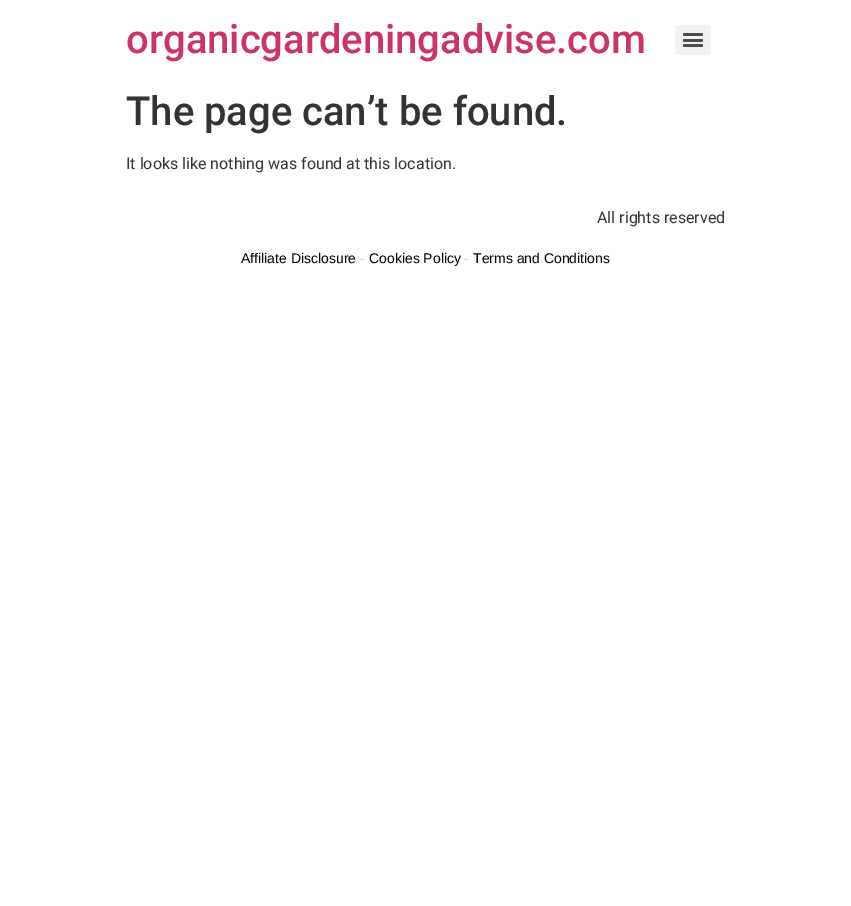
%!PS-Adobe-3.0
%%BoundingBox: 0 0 851 906
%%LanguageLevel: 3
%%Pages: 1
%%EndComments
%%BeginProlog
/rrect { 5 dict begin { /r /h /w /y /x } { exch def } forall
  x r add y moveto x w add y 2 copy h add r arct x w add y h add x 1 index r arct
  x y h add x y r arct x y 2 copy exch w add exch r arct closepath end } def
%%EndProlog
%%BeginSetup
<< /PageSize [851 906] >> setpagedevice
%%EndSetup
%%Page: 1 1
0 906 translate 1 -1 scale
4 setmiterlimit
1 setgray
0 0 851 906 rectfill
0.949 setgray
675 25 36 30 3 rrect fill
0.286 0.298 0.31 setrgbcolor
683 39 20 3 1.5 rrect fill
683 33 20 3 1.5 rrect fill
683 44 20 3 1.5 rrect fill
/Roboto-Medium [40 0 0 -40 0 0] selectfont
0.8 0.2 0.4 setrgbcolor
126 53 moveto (organicgardeningadvise.com) show
0.2 setgray
126 125 moveto (The page can’t be found.) show
/Roboto-Regular [16 0 0 -16 0 0] selectfont
126 169 moveto (It looks like nothing was found at this location.) show
597 223 moveto (All rights reserved) show
/LiberationSans-Regular [14 0 0 -14 0 0] selectfont
0 setgray
241 263 moveto (Affiliate Disclosure) show
0.8 setgray
360 263 moveto (-) show
0 setgray
369 263 moveto (Cookies Policy) show
0.8 setgray
464 263 moveto (-) show
0 setgray
473 263 moveto (Terms and Conditions) show
showpage
%%EOF
